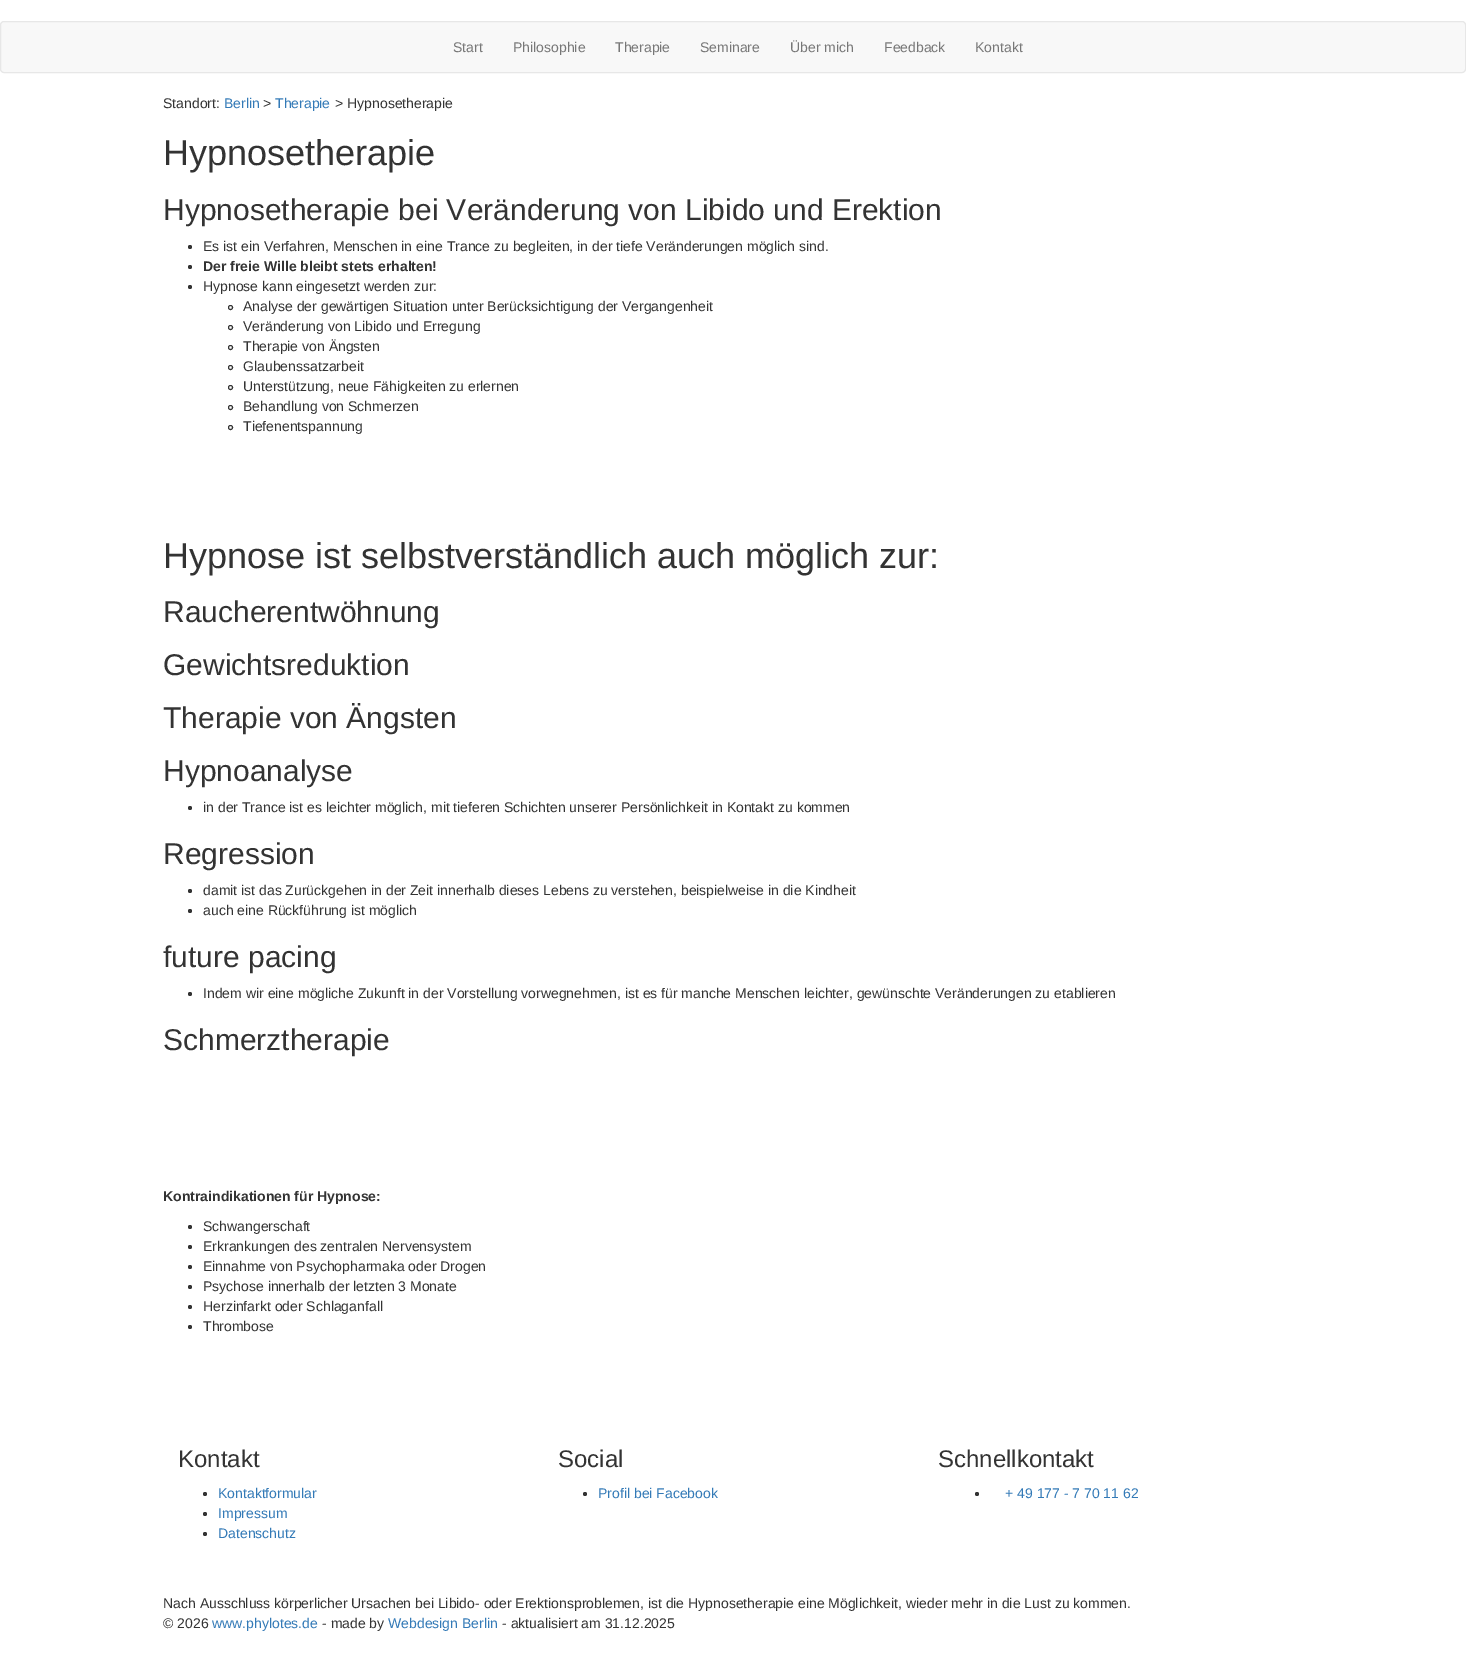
%!PS-Adobe-3.0
%%BoundingBox: 0 0 1466 1672
%%LanguageLevel: 3
%%Pages: 1
%%EndComments
%%BeginProlog
/rrect { 5 dict begin { /r /h /w /y /x } { exch def } forall
  x r add y moveto x w add y 2 copy h add r arct x w add y h add x 1 index r arct
  x y h add x y r arct x y 2 copy exch w add exch r arct closepath end } def
%%EndProlog
%%BeginSetup
<< /PageSize [1466 1672] >> setpagedevice
%%EndSetup
%%Page: 1 1
0 1672 translate 1 -1 scale
4 setmiterlimit
1 setgray
0 0 1466 1672 rectfill
0.973 setgray
0.5 21.5 1465 51 3.5 rrect gsave fill grestore
0.906 setgray
stroke
0.2 setgray
newpath 190 247 2 0 360 arc closepath fill
newpath 190 267 2 0 360 arc closepath fill
newpath 190 287 2 0 360 arc closepath fill
newpath 230.5 307.5 2 0 360 arc closepath stroke
newpath 230.5 327.5 2 0 360 arc closepath stroke
newpath 230.5 347.5 2 0 360 arc closepath stroke
newpath 230.5 367.5 2 0 360 arc closepath stroke
newpath 230.5 387.5 2 0 360 arc closepath stroke
newpath 230.5 407.5 2 0 360 arc closepath stroke
newpath 230.5 427.5 2 0 360 arc closepath stroke
newpath 190 808 2 0 360 arc closepath fill
newpath 190 891 2 0 360 arc closepath fill
newpath 190 911 2 0 360 arc closepath fill
newpath 190 994 2 0 360 arc closepath fill
newpath 190 1227 2 0 360 arc closepath fill
newpath 190 1247 2 0 360 arc closepath fill
newpath 190 1267 2 0 360 arc closepath fill
newpath 190 1287 2 0 360 arc closepath fill
newpath 190 1307 2 0 360 arc closepath fill
newpath 190 1327 2 0 360 arc closepath fill
newpath 205 1494 2 0 360 arc closepath fill
newpath 205 1514 2 0 360 arc closepath fill
newpath 205 1534 2 0 360 arc closepath fill
newpath 585 1494 2 0 360 arc closepath fill
newpath 977 1494 2 0 360 arc closepath fill
/LiberationSans-Regular [14 0 0 -14 0 0] selectfont
0.467 setgray
453 52 moveto (Start) show
513 52 moveto (Philosophie) show
615 52 moveto (Therapie) show
700 52 moveto (Seminare) show
790 52 moveto (Über mich) show
884 52 moveto (Feedback) show
975 52 moveto (Kontakt) show
0.2 setgray
163 108 moveto (Standort:) show
0.2 0.478 0.718 setrgbcolor
224 108 moveto (Berlin) show
0.2 setgray
263 108 moveto (>) show
0.2 0.478 0.718 setrgbcolor
275 108 moveto (Therapie) show
0.2 setgray
335 108 moveto (> Hypnosetherapie) show
/LiberationSans-Regular [36 0 0 -36 0 0] selectfont
163 165 moveto (Hypnosetherapie) show
/LiberationSans-Regular [30 0 0 -30 0 0] selectfont
163 220 moveto (Hypnosetherapie bei Veränderung von Libido und Erektion) show
/LiberationSans-Regular [14 0 0 -14 0 0] selectfont
203 251 moveto (Es ist ein Verfahren, Menschen in eine Trance zu begleiten, in der tiefe Veränderungen möglich sind.) show
/LiberationSans-Bold [14 0 0 -14 0 0] selectfont
203 271 moveto (Der freie Wille bleibt stets erhalten!) show
/LiberationSans-Regular [14 0 0 -14 0 0] selectfont
203 291 moveto (Hypnose kann eingesetzt werden zur:) show
243 311 moveto (Analyse der gewärtigen Situation unter Berücksichtigung der Vergangenheit) show
243 331 moveto (Veränderung von Libido und Erregung) show
243 351 moveto (Therapie von Ängsten) show
243 371 moveto (Glaubenssatzarbeit) show
243 391 moveto (Unterstützung, neue Fähigkeiten zu erlernen) show
243 411 moveto (Behandlung von Schmerzen) show
243 431 moveto (Tiefenentspannung) show
/LiberationSans-Regular [36 0 0 -36 0 0] selectfont
163 568 moveto (Hypnose ist selbstverständlich auch möglich zur:) show
/LiberationSans-Regular [30 0 0 -30 0 0] selectfont
163 622 moveto (Raucherentwöhnung) show
163 675 moveto (Gewichtsreduktion) show
163 728 moveto (Therapie von Ängsten) show
163 781 moveto (Hypnoanalyse) show
/LiberationSans-Regular [14 0 0 -14 0 0] selectfont
203 812 moveto (in der Trance ist es leichter möglich, mit tieferen Schichten unserer Persönlichkeit in Kontakt zu kommen) show
/LiberationSans-Regular [30 0 0 -30 0 0] selectfont
163 864 moveto (Regression) show
/LiberationSans-Regular [14 0 0 -14 0 0] selectfont
203 895 moveto (damit ist das Zurückgehen in der Zeit innerhalb dieses Lebens zu verstehen, beispielweise in die Kindheit) show
203 915 moveto (auch eine Rückführung ist möglich) show
/LiberationSans-Regular [30 0 0 -30 0 0] selectfont
163 967 moveto (future pacing) show
/LiberationSans-Regular [14 0 0 -14 0 0] selectfont
203 998 moveto (Indem wir eine mögliche Zukunft in der Vorstellung vorwegnehmen, ist es für manche Menschen leichter, gewünschte Veränderungen zu etablieren) show
/LiberationSans-Regular [30 0 0 -30 0 0] selectfont
163 1050 moveto (Schmerztherapie) show
/LiberationSans-Bold [14 0 0 -14 0 0] selectfont
163 1201 moveto (Kontraindikationen für Hypnose:) show
/LiberationSans-Regular [14 0 0 -14 0 0] selectfont
203 1231 moveto (Schwangerschaft) show
203 1251 moveto (Erkrankungen des zentralen Nervensystem) show
203 1271 moveto (Einnahme von Psychopharmaka oder Drogen) show
203 1291 moveto (Psychose innerhalb der letzten 3 Monate) show
203 1311 moveto (Herzinfarkt oder Schlaganfall) show
203 1331 moveto (Thrombose) show
/LiberationSans-Regular [24 0 0 -24 0 0] selectfont
178 1467 moveto (Kontakt) show
/LiberationSans-Regular [14 0 0 -14 0 0] selectfont
0.2 0.478 0.718 setrgbcolor
218 1498 moveto (Kontaktformular) show
218 1518 moveto (Impressum) show
218 1538 moveto (Datenschutz) show
/LiberationSans-Regular [24 0 0 -24 0 0] selectfont
0.2 setgray
558 1467 moveto (Social) show
/LiberationSans-Regular [14 0 0 -14 0 0] selectfont
0.2 0.478 0.718 setrgbcolor
598 1498 moveto (Profil bei Facebook) show
/LiberationSans-Regular [24 0 0 -24 0 0] selectfont
0.2 setgray
938 1467 moveto (Schnellkontakt) show
/LiberationSans-Regular [14 0 0 -14 0 0] selectfont
0.2 0.478 0.718 setrgbcolor
1005 1498 moveto (+ 49 177 - 7 70 11 62) show
0.2 setgray
163 1608 moveto (Nach Ausschluss körperlicher Ursachen bei Libido- oder Erektionsproblemen, ist die Hypnosetherapie eine Möglichkeit, wieder mehr in die Lust zu kommen.) show
163 1628 moveto (© 2026) show
0.2 0.478 0.718 setrgbcolor
212 1628 moveto (www.phylotes.de) show
0.2 setgray
322 1628 moveto (- made by) show
0.2 0.478 0.718 setrgbcolor
388 1628 moveto (Webdesign Berlin) show
0.2 setgray
502 1628 moveto (- aktualisiert am 31.12.2025) show
showpage
%%EOF
